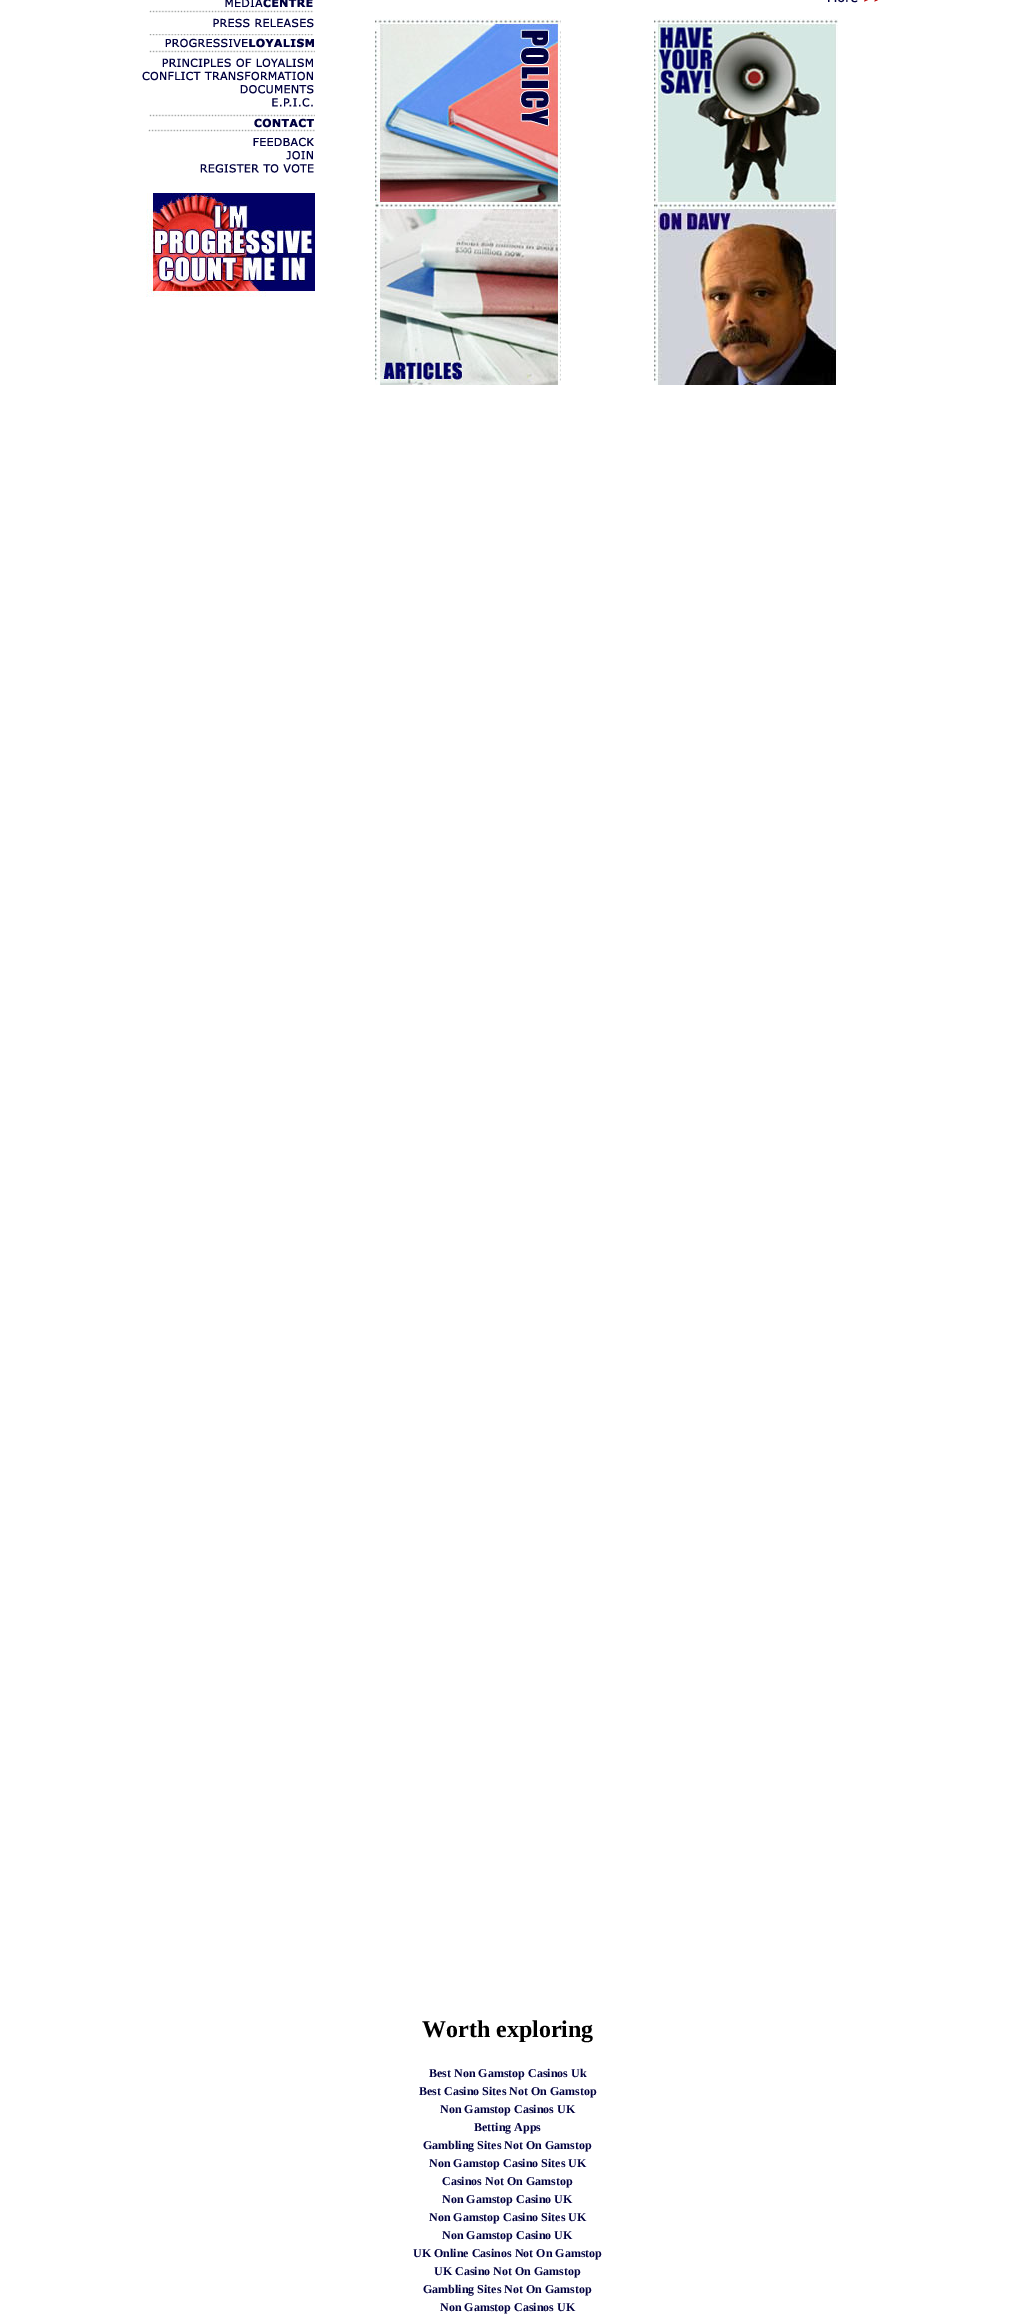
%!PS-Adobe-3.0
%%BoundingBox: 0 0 1015 2319
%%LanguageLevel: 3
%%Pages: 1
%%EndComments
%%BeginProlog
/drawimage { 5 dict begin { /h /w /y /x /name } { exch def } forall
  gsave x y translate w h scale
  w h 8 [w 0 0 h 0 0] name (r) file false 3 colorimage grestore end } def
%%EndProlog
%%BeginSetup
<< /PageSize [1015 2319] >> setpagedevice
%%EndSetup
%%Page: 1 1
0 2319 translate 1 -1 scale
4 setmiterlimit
1 setgray
0 0 1015 2319 rectfill
(images/1.raw) 150 0 163 11 drawimage
(images/2.raw) 149 11 165 17 drawimage
(images/3.raw) 149 34 166 17 drawimage
(images/4.raw) 149 51 166 16 drawimage
(images/5.raw) 142 71 171 10 drawimage
(images/6.raw) 240 85 74 9 drawimage
(images/7.raw) 149 98 166 17 drawimage
(images/8.raw) 149 115 166 15 drawimage
(images/9.raw) 148 130 167 17 drawimage
(images/10.raw) 286 151 27 9 drawimage
(images/11.raw) 200 164 114 9 drawimage
(images/12.raw) 146 193 169 104 drawimage
(images/13.raw) 828 0 50 3 drawimage
(images/14.raw) 375 19 186 186 drawimage
(images/15.raw) 654 19 184 186 drawimage
(images/16.raw) 375 205 186 180 drawimage
(images/17.raw) 654 205 184 180 drawimage
/LiberationSerif-Bold [24 0 0 -24 0 0] selectfont
0 setgray
422 2037 moveto (Worth exploring) show
/LiberationSerif-Bold [12 0 0 -12 0 0] selectfont
0.004 0.004 0.251 setrgbcolor
429 2077 moveto (Best Non Gamstop Casinos Uk) show
419 2095 moveto (Best Casino Sites Not On Gamstop) show
440 2113 moveto (Non Gamstop Casinos UK) show
474 2131 moveto (Betting Apps) show
423 2149 moveto (Gambling Sites Not On Gamstop) show
429 2167 moveto (Non Gamstop Casino Sites UK) show
442 2185 moveto (Casinos Not On Gamstop) show
442 2203 moveto (Non Gamstop Casino UK) show
429 2221 moveto (Non Gamstop Casino Sites UK) show
442 2239 moveto (Non Gamstop Casino UK) show
413 2257 moveto (UK Online Casinos Not On Gamstop) show
434 2275 moveto (UK Casino Not On Gamstop) show
423 2293 moveto (Gambling Sites Not On Gamstop) show
440 2311 moveto (Non Gamstop Casinos UK) show
showpage
%%EOF
